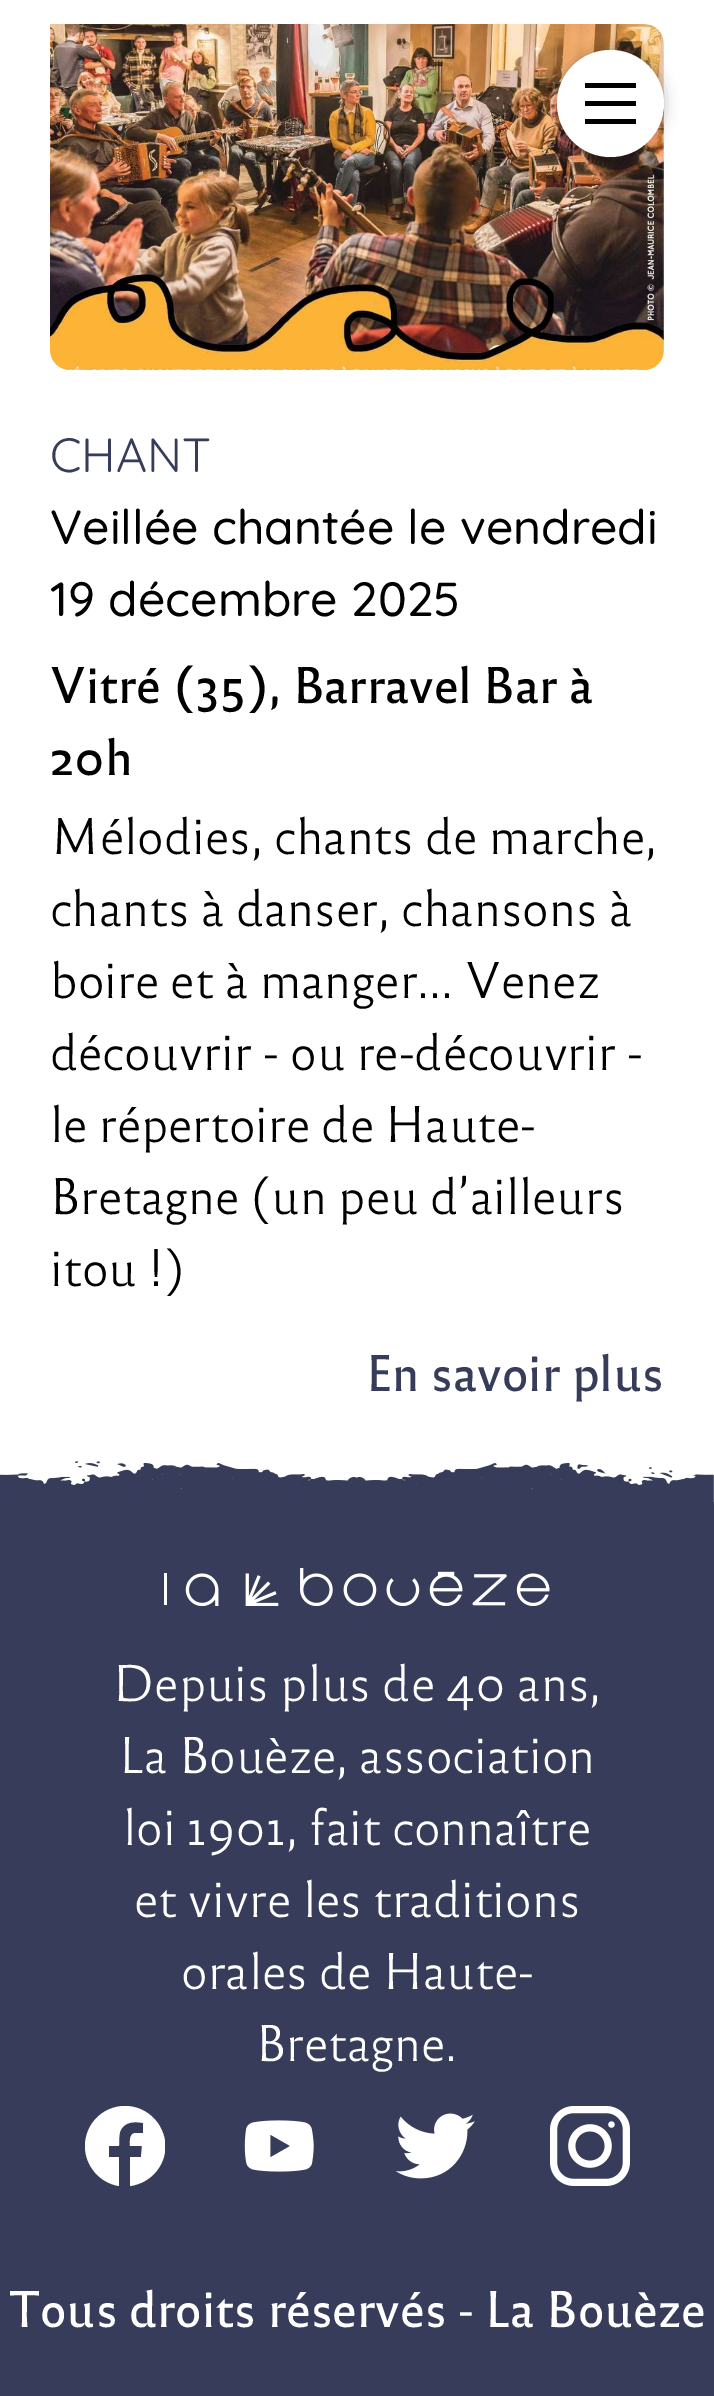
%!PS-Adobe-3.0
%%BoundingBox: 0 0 714 2396
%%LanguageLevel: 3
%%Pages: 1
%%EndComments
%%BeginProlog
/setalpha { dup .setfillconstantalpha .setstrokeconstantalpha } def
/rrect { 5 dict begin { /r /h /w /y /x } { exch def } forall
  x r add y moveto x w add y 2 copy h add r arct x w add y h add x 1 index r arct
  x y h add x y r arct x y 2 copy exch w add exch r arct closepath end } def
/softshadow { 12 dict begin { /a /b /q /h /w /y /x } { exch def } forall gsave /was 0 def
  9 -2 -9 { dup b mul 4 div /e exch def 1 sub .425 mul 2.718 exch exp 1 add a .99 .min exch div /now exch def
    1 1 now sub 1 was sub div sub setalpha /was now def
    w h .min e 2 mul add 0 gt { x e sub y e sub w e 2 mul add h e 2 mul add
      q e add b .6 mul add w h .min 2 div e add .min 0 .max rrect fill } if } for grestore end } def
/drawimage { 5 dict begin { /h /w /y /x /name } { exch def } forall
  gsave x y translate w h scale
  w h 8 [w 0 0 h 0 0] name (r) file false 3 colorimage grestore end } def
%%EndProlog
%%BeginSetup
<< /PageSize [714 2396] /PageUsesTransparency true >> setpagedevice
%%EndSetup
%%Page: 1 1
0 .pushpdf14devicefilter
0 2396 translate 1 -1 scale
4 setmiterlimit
1 setgray
0 0 714 2396 rectfill
(images/1.raw) 50 24 614 346 drawimage
0 setgray
557 50 107 107 53.5 7 0.25 softshadow
1 setgray
newpath 610.5 103.5 53.5 0 360 arc closepath fill
0 setgray
newpath 585 124 moveto 636 124 lineto 636 119 lineto 585 119 lineto closepath 585 106 moveto 636 106 lineto 636 101 lineto 585 101 lineto closepath 585 88 moveto 636 88 lineto 636 83 lineto 585 83 lineto closepath fill
(images/2.raw) 0 1461 714 41 drawimage
0.212 0.235 0.349 setrgbcolor
0 1502 714 894 rectfill
(images/3.raw) 164 1568 386 38 drawimage
gsave
85 2106 80 80 rectclip
1 setgray
newpath 125 2106 moveto 103 2106 85 2124 85 2146 curveto 85 2166 100 2183 119 2186 curveto 119 2157 lineto 109 2157 lineto 109 2146 lineto 119 2146 lineto 119 2141 119 2136 120 2132 curveto 123 2122 134 2121 143 2123 curveto 143 2133 lineto 135 2133 lineto 129 2134 130 2142 130 2146 curveto 142 2146 lineto 141 2157 lineto 130 2157 lineto 130 2186 lineto 152 2183 168 2163 165 2141 curveto 162 2121 145 2106 125 2106 curveto fill
grestore
(images/4.raw) 244 2120 70 52 drawimage
(images/5.raw) 395 2113 80 66 drawimage
(images/6.raw) 550 2106 80 80 drawimage
/Quicksand-Regular [48 0 0 -48 0 0] selectfont
50 472 moveto (CHANT) show
/Quicksand-Medium [48 0 0 -48 0 0] selectfont
0 setgray
50 544 moveto (Veillée chantée le vendredi) show
50 616 moveto (19 décembre 2025) show
/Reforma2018-Medium [48 0 0 -48 0 0] selectfont
50 703 moveto (Vitré \(35\), Barravel Bar à) show
50 775 moveto (20h) show
/Reforma2018-Light [48 0 0 -48 0 0] selectfont
50 854 moveto (Mélodies, chants de marche,) show
50 926 moveto (chants à danser, chansons à) show
50 998 moveto (boire et à manger… Venez) show
50 1070 moveto (découvrir - ou re-découvrir -) show
50 1142 moveto (le répertoire de Haute-) show
50 1214 moveto (Bretagne \(un peu d’ailleurs) show
50 1286 moveto (itou !\)) show
/Reforma2018-Medium [48 0 0 -48 0 0] selectfont
0.212 0.235 0.349 setrgbcolor
366 1391 moveto (En savoir plus) show
/Reforma2018-Light [48 0 0 -48 0 0] selectfont
1 setgray
113 1701 moveto (Depuis plus de 40 ans,) show
119 1773 moveto (La Bouèze, association) show
123 1845 moveto (loi 1901, fait connaître) show
134 1917 moveto (et vivre les traditions) show
181 1989 moveto (orales de Haute-) show
256 2061 moveto (Bretagne.) show
/Reforma2018-Medium [48 0 0 -48 0 0] selectfont
9 2327 moveto (Tous droits réservés - La Bouèze) show
.poppdf14devicefilter showpage
%%EOF
